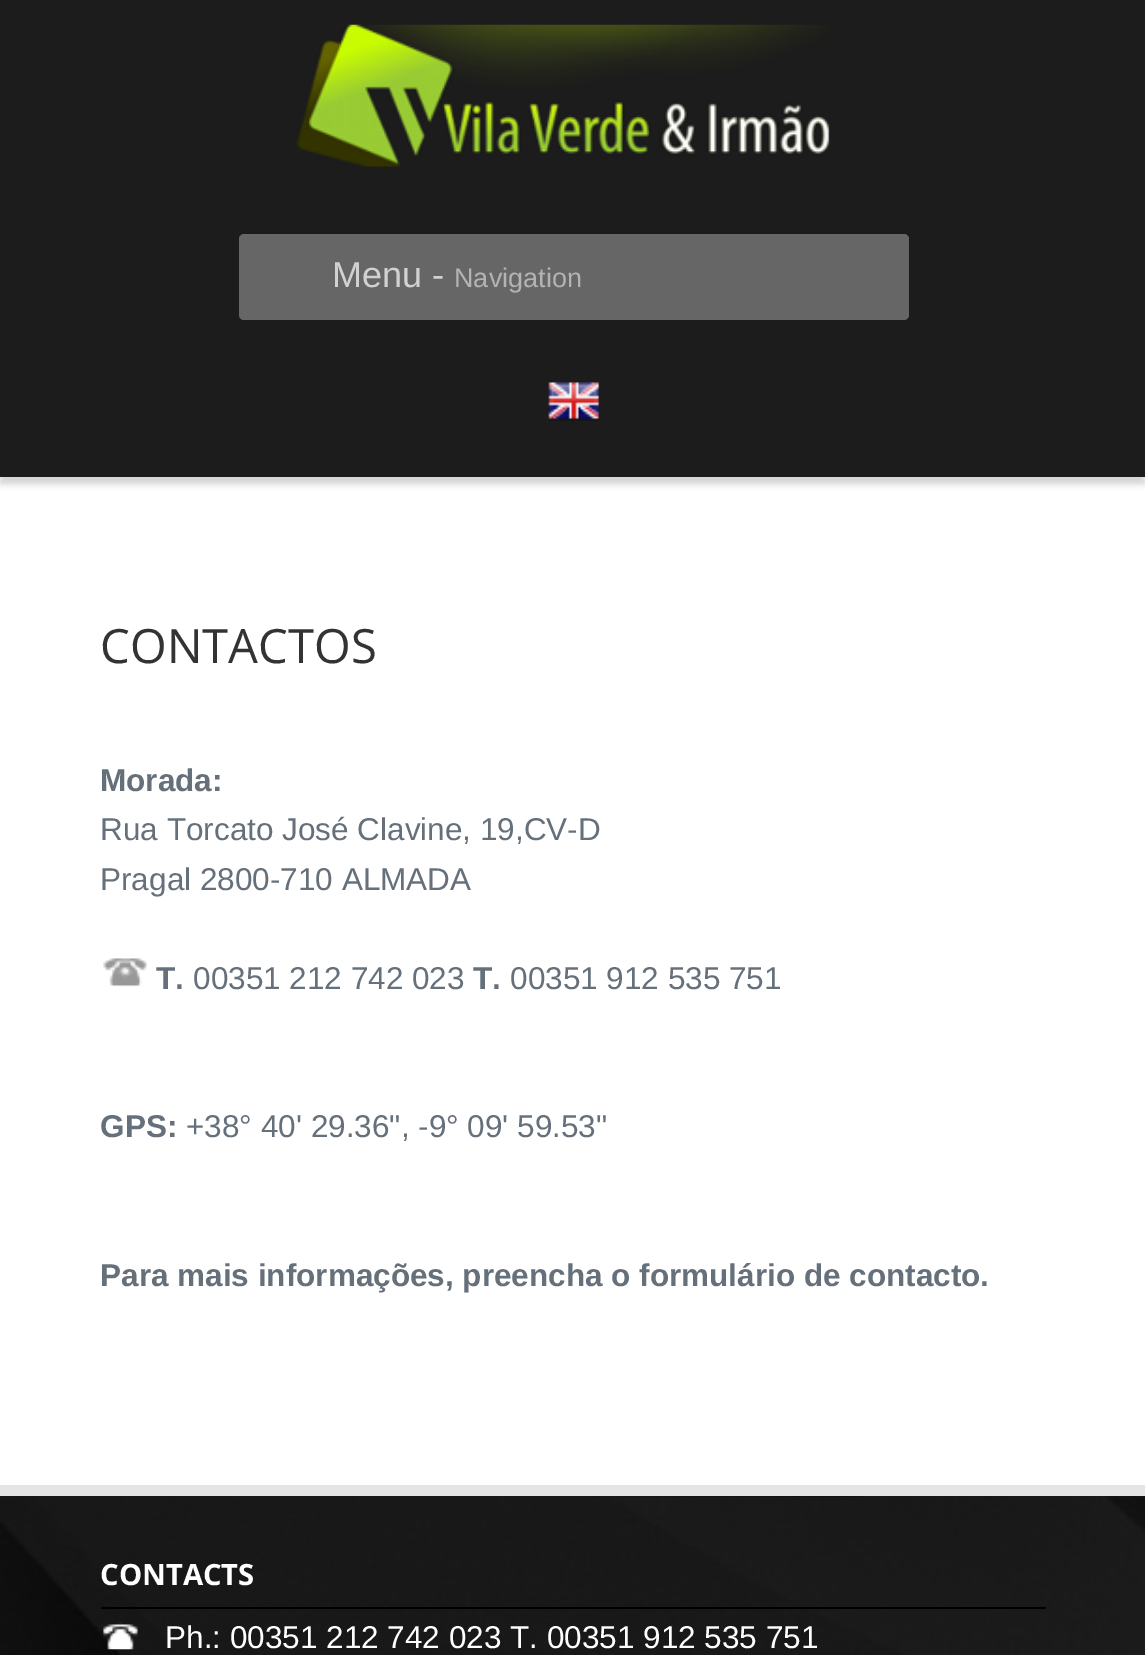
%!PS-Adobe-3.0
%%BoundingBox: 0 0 1145 1655
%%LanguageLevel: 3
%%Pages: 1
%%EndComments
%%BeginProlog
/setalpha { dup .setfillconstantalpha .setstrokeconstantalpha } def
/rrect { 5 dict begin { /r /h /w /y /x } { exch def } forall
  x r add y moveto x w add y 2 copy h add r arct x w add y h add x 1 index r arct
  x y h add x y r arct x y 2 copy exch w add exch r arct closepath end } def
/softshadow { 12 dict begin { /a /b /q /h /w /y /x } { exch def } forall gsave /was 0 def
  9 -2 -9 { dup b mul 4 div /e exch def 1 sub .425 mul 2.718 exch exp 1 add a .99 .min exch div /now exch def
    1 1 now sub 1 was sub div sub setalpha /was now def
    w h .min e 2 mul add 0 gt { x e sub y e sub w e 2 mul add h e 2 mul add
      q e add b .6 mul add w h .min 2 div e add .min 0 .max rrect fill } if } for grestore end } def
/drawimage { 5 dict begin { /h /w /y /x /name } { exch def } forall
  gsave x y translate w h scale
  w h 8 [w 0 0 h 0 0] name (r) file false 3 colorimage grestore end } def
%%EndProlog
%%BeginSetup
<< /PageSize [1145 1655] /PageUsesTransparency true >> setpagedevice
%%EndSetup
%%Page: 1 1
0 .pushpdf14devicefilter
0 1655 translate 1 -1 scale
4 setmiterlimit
1 setgray
0 0 1145 1655 rectfill
0 setgray
0 7 1145 477 0 3.5 0.17 softshadow
0.11 setgray
0 0 1145 477 rectfill
(images/1.raw) 296 24 534 143 drawimage
0.4 setgray
239 234 670 86 5 rrect fill
(images/2.raw) 548 382 52 39 drawimage
(images/3.raw) 103 958 44 29 drawimage
(images/4.raw) 0 1496 1145 159 drawimage
0.898 setgray
0 1485 1145 11 rectfill
0 setgray
101 1607 945 2 rectfill
(images/5.raw) 103 1622 35 28 drawimage
/LiberationSans-Regular [36 0 0 -36 0 0] selectfont
0.82 setgray
332 287 moveto (Menu -) show
/LiberationSans-Regular [27 0 0 -27 0 0] selectfont
0.702 setgray
454 287 moveto (Navigation) show
/OpenSans-Regular [47.25 0 0 -47.25 0 0] selectfont
0.2 setgray
100 663 moveto (CONTACTOS) show
/LiberationSans-Bold [31.5 0 0 -31.5 0 0] selectfont
0.396 0.439 0.482 setrgbcolor
100 791 moveto (Morada:) show
/LiberationSans-Regular [31.5 0 0 -31.5 0 0] selectfont
100 840 moveto (Rua Torcato José Clavine, 19,CV-D) show
100 890 moveto (Pragal 2800-710 ALMADA) show
/LiberationSans-Bold [31.5 0 0 -31.5 0 0] selectfont
156 989 moveto (T.) show
/LiberationSans-Regular [31.5 0 0 -31.5 0 0] selectfont
193 989 moveto (00351 212 742 023) show
/LiberationSans-Bold [31.5 0 0 -31.5 0 0] selectfont
473 989 moveto (T.) show
/LiberationSans-Regular [31.5 0 0 -31.5 0 0] selectfont
510 989 moveto (00351 912 535 751) show
/LiberationSans-Bold [31.5 0 0 -31.5 0 0] selectfont
100 1137 moveto (GPS:) show
/LiberationSans-Regular [31.5 0 0 -31.5 0 0] selectfont
186 1137 moveto (+38° 40' 29.36", -9° 09' 59.53") show
/LiberationSans-Bold [31.5 0 0 -31.5 0 0] selectfont
100 1286 moveto (Para mais informações, preencha o formulário de contacto.) show
/OpenSans-Bold [29.25 0 0 -29.25 0 0] selectfont
1 setgray
100 1585 moveto (CONTACTS) show
/LiberationSans-Regular [31.5 0 0 -31.5 0 0] selectfont
165 1648 moveto (Ph.: 00351 212 742 023 T. 00351 912 535 751) show
.poppdf14devicefilter showpage
%%EOF
